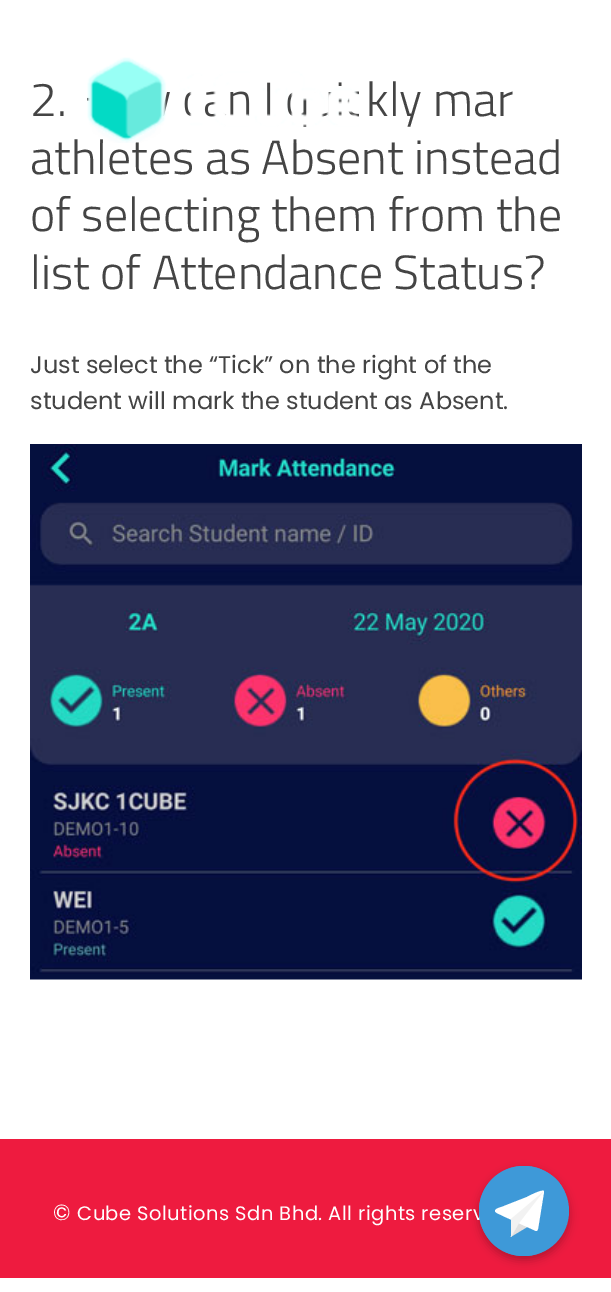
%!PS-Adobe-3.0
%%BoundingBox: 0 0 611 1292
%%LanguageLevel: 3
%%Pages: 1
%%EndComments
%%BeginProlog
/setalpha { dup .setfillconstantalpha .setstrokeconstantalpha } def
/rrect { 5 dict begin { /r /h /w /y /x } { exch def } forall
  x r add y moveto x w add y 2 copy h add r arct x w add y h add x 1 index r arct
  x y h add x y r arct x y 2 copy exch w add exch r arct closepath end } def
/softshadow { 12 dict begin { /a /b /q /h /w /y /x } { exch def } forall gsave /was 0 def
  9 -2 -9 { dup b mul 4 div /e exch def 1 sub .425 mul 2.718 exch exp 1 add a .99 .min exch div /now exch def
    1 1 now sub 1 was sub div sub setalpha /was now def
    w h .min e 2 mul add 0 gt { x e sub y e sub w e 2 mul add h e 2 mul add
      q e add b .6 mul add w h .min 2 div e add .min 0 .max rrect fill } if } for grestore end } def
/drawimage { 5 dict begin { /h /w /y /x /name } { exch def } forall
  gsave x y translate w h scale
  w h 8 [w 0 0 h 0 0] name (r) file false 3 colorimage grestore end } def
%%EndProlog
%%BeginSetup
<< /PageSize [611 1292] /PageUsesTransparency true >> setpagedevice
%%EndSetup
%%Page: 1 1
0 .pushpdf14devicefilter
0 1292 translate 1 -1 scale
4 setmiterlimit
1 setgray
0 0 611 1292 rectfill
(images/2.raw) 30 444 552 536 drawimage
0.933 0.106 0.247 setrgbcolor
0 1139 611 139 rectfill
0 setgray
479 1170 90 90 45 4.5 0.25 softshadow
/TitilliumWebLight-Light [48 0 0 -48 0 0] selectfont
0.267 setgray
30 116 moveto (2.) show
227 116 moveto (n I) show
366 116 moveto (kly mar) show
30 174 moveto (athletes as Absent instead) show
(images/1.raw) 87 57 272 86 drawimage
30 231 moveto (of selecting them from the) show
30 289 moveto (list of Attendance Status?) show
/Poppins-Regular [24 0 0 -24 0 0] selectfont
30 373 moveto (Just select the “Tick” on the right of the) show
30 409 moveto (student will mark the student as Absent.) show
/Poppins-Regular [22 0 0 -22 0 0] selectfont
1 setgray
53 1220 moveto 0.45 0 (©) ashow
/Poppins-Regular [19.5 0 0 -19.5 0 0] selectfont
77 1220 moveto 0.45 0 (Cube Solutions Sdn Bhd. All rights reserv) ashow
0.243 0.6 0.847 setrgbcolor
newpath 524 1211 45 0 360 arc closepath fill
newpath 524 1166 moveto 536 1166 547 1171 556 1179 curveto 564 1187 568 1198 568 1210 curveto 568 1235 548 1256 524 1256 curveto 511 1256 500 1251 492 1243 curveto 484 1234 479 1223 479 1211 curveto 479 1186 499 1166 524 1166 curveto closepath fill
0.878 setgray
newpath 519 1222.5 moveto 510.5 1237 lineto 528 1226.5 lineto closepath fill
1 setgray
newpath 544 1191 moveto 542 1189 529 1196 527 1197 curveto 504 1206 lineto 503 1207 495 1208 495 1211 curveto 495 1213 502 1215 503 1216 curveto 536 1231 lineto 537 1231 lineto 538 1229 lineto 544 1192 lineto closepath fill
0.949 setgray
newpath 543 1192 moveto 511 1219 lineto 511 1237 lineto 519 1223 lineto closepath fill
.poppdf14devicefilter showpage
%%EOF
